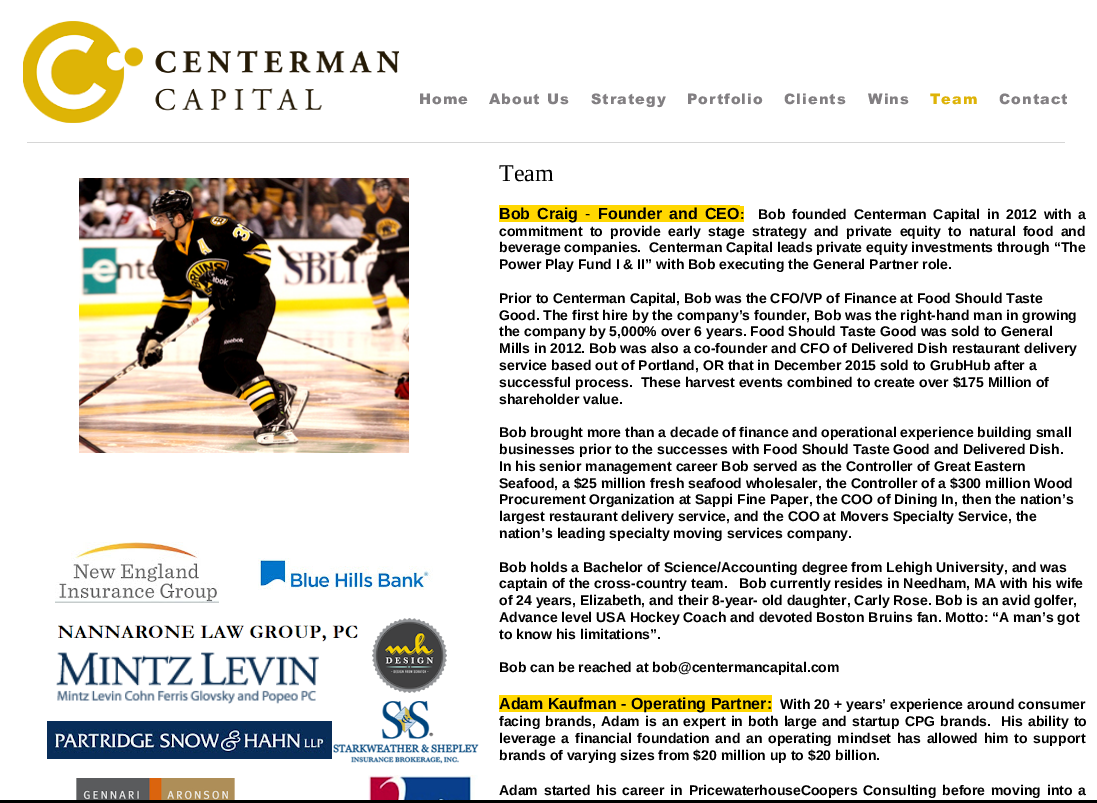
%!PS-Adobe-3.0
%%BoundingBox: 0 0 1097 803
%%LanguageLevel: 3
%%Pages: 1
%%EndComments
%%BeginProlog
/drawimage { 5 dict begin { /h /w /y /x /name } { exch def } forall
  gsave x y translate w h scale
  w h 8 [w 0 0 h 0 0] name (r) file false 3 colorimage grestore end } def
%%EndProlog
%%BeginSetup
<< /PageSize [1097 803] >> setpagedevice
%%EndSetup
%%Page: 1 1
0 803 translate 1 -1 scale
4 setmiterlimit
1 setgray
0 0 1097 803 rectfill
(images/1.raw) 23 21 376 102 drawimage
0.839 setgray
27 142 1038 1 rectfill
(images/2.raw) 79 178 330 275 drawimage
1 0.843 0 setrgbcolor
499 205 241 17 rectfill
740 206 4 16 rectfill
499 695 273 17 rectfill
(images/3.raw) 55 542 164 61 drawimage
(images/4.raw) 258 558 175 32 drawimage
(images/5.raw) 58 625 300 17 drawimage
(images/6.raw) 372 618 75 75 drawimage
(images/7.raw) 56 652 263 52 drawimage
(images/8.raw) 47 721 285 38 drawimage
(images/9.raw) 333 701 146 63 drawimage
(images/10.raw) 76 778 159 22 drawimage
(images/11.raw) 368 775 110 25 drawimage
0 setgray
0 800 1097 3 rectfill
/Arial-Black [14.5 0 0 -14.5 0 0] selectfont
0.51 0.498 0.51 setrgbcolor
419 104 moveto 1 0 (Home) ashow
489 104 moveto 1 0 (About Us) ashow
591 104 moveto 1 0 (Strategy) ashow
687 104 moveto 1 0 (Portfolio) ashow
784 104 moveto 1 0 (Clients) ashow
868 104 moveto 1 0 (Wins) ashow
0.871 0.702 0.027 setrgbcolor
930 104 moveto 1 0 (Team) ashow
0.51 0.498 0.51 setrgbcolor
999 104 moveto 1 0 (Contact) ashow
/LiberationSerif-Regular [24 0 0 -24 0 0] selectfont
0 setgray
499 181 moveto (Team) show
/LiberationSans-Bold [16 0 0 -16 0 0] selectfont
499 219 moveto 2.75 0 32 (Bob Craig) widthshow
/LiberationSans-Regular [16 0 0 -16 0 0] selectfont
585 219 moveto (-) show
/LiberationSans-Bold [16 0 0 -16 0 0] selectfont
598 219 moveto 2.75 0 32 (Founder and CEO) widthshow
/LiberationSans-Bold [14 0 0 -14 0 0] selectfont
740 219 moveto (:) show
758 219 moveto 2.75 0 32 (Bob founded Centerman Capital in 2012 with a) widthshow
499 236 moveto 3.5 0 32 (commitment to provide early stage strategy and private equity to natural food and) widthshow
499 252 moveto (beverage companies.  Centerman Capital leads private equity investments through “The) show
499 269 moveto (Power Play Fund I & II” with Bob executing the General Partner role.) show
499 303 moveto (Prior to Centerman Capital, Bob was the CFO/VP of Finance at Food Should Taste) show
499 320 moveto (Good. The first hire by the company’s founder, Bob was the right-hand man in growing) show
499 336 moveto (the company by 5,000% over 6 years. Food Should Taste Good was sold to General) show
499 353 moveto (Mills in 2012. Bob was also a co-founder and CFO of Delivered Dish restaurant delivery) show
499 370 moveto (service based out of Portland, OR that in December 2015 sold to GrubHub after a) show
499 387 moveto (successful process.  These harvest events combined to create over $175 Million of) show
499 404 moveto (shareholder value.) show
499 437 moveto (Bob brought more than a decade of finance and operational experience building small) show
499 454 moveto (businesses prior to the successes with Food Should Taste Good and Delivered Dish.) show
499 471 moveto (In his senior management career Bob served as the Controller of Great Eastern) show
499 488 moveto (Seafood, a $25 million fresh seafood wholesaler, the Controller of a $300 million Wood) show
499 504 moveto (Procurement Organization at Sappi Fine Paper, the COO of Dining In, then the nation’s) show
499 521 moveto (largest restaurant delivery service, and the COO at Movers Specialty Service, the) show
499 538 moveto (nation’s leading specialty moving services company.) show
499 572 moveto (Bob holds a Bachelor of Science/Accounting degree from Lehigh University, and was) show
499 588 moveto (captain of the cross-country team.   Bob currently resides in Needham, MA with his wife) show
499 605 moveto (of 24 years, Elizabeth, and their 8-year- old daughter, Carly Rose. Bob is an avid golfer,) show
499 622 moveto (Advance level USA Hockey Coach and devoted Boston Bruins fan. Motto: “A man’s got) show
499 639 moveto (to know his limitations”.) show
499 672 moveto (Bob can be reached at bob@centermancapital.com) show
/LiberationSans-Bold [16 0 0 -16 0 0] selectfont
499 709 moveto (Adam Kaufman - Operating Partner:) show
/LiberationSans-Bold [14 0 0 -14 0 0] selectfont
780 709 moveto (With 20 + years’ experience around consumer) show
499 726 moveto 1.25 0 32 (facing brands, Adam is an expert in both large and startup CPG brands.  His ability to) widthshow
499 743 moveto 1.8 0 32 (leverage a financial foundation and an operating mindset has allowed him to support) widthshow
499 760 moveto (brands of varying sizes from $20 million up to $20 billion.) show
499 795 moveto 2 0 32 (Adam started his career in PricewaterhouseCoopers Consulting before moving into a) widthshow
showpage
%%EOF
